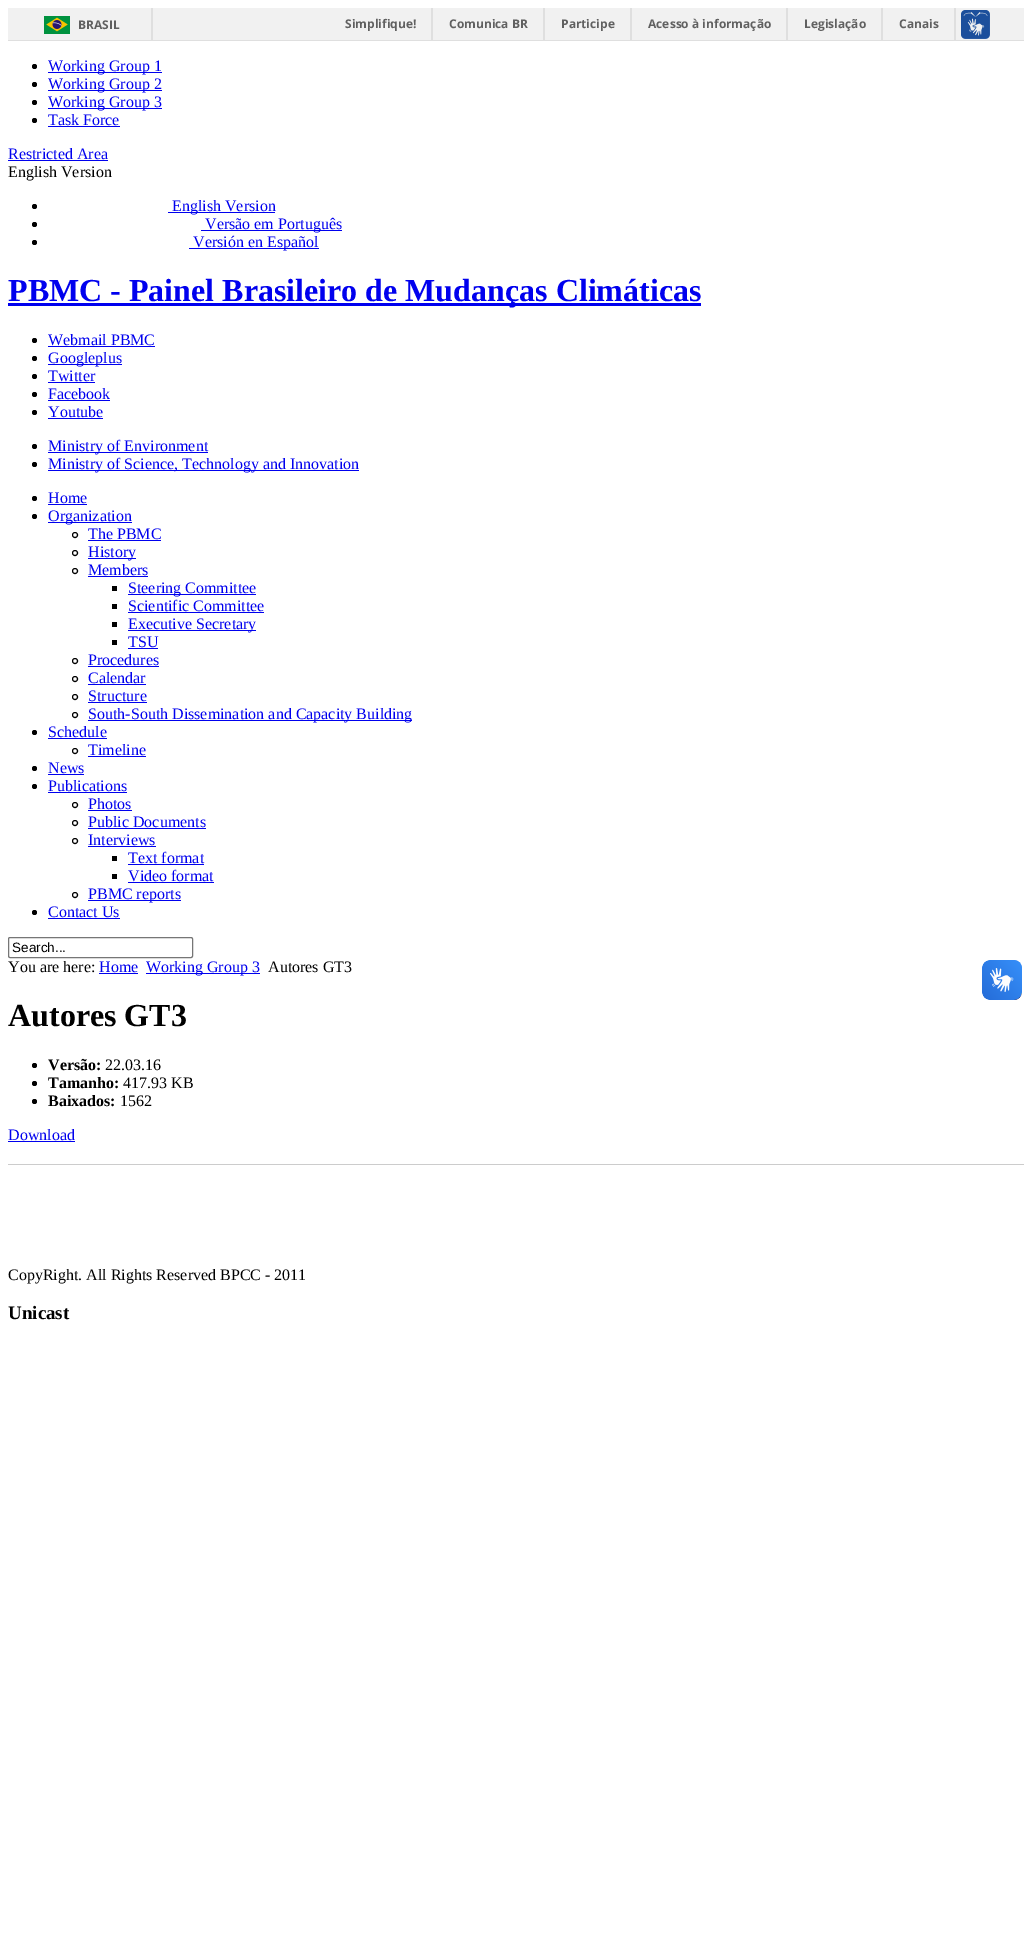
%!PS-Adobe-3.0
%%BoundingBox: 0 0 1032 1960
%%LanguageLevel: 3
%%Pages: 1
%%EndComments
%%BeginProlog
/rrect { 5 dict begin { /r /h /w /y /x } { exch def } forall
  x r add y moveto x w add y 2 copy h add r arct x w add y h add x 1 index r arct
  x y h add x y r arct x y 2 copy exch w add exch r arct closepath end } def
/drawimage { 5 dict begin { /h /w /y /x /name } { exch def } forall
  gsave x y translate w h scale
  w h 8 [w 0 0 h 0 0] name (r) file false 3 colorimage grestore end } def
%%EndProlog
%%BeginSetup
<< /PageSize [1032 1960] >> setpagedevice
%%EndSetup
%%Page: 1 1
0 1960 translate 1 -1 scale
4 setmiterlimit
1 setgray
0 0 1032 1960 rectfill
0.945 setgray
8 8 1016 32 rectfill
0.875 setgray
8 40 1016 1 rectfill
151 8 2 32 rectfill
(images/1.raw) 44 16 26 18 drawimage
431 8 2 32 rectfill
543 8 2 32 rectfill
630 8 2 32 rectfill
786 8 2 32 rectfill
881 8 2 32 rectfill
954 8 2 32 rectfill
(images/2.raw) 961 10 29 29 drawimage
0 setgray
newpath 34.5 66.5 2.5 0 360 arc closepath fill
0 0 0.933 setrgbcolor
48 72 114 1 rectfill
0 setgray
newpath 34.5 84.5 2.5 0 360 arc closepath fill
0 0 0.933 setrgbcolor
48 90 114 1 rectfill
0 setgray
newpath 34.5 102.5 2.5 0 360 arc closepath fill
0 0 0.933 setrgbcolor
48 108 114 1 rectfill
0 setgray
newpath 34.5 120.5 2.5 0 360 arc closepath fill
0 0 0.933 setrgbcolor
48 126 72 1 rectfill
8 160 100 1 rectfill
0 setgray
newpath 34.5 206.5 2.5 0 360 arc closepath fill
0 0 0.933 setrgbcolor
168 212 107 1 rectfill
0 setgray
newpath 34.5 224.5 2.5 0 360 arc closepath fill
0 0 0.933 setrgbcolor
201 230 141 1 rectfill
0 setgray
newpath 34.5 242.5 2.5 0 360 arc closepath fill
0 0 0.933 setrgbcolor
189 248 130 1 rectfill
8 303 693 3 rectfill
0 setgray
newpath 34.5 340.5 2.5 0 360 arc closepath fill
0 0 0.933 setrgbcolor
48 346 107 1 rectfill
0 setgray
newpath 34.5 358.5 2.5 0 360 arc closepath fill
0 0 0.933 setrgbcolor
48 364 74 1 rectfill
0 setgray
newpath 34.5 376.5 2.5 0 360 arc closepath fill
0 0 0.933 setrgbcolor
48 382 47 1 rectfill
0 setgray
newpath 34.5 394.5 2.5 0 360 arc closepath fill
0 0 0.933 setrgbcolor
48 400 62 1 rectfill
0 setgray
newpath 34.5 412.5 2.5 0 360 arc closepath fill
0 0 0.933 setrgbcolor
48 418 55 1 rectfill
0 setgray
newpath 34.5 446.5 2.5 0 360 arc closepath fill
0 0 0.933 setrgbcolor
48 452 160 1 rectfill
0 setgray
newpath 34.5 464.5 2.5 0 360 arc closepath fill
0 0 0.933 setrgbcolor
48 470 311 1 rectfill
0 setgray
newpath 34.5 498.5 2.5 0 360 arc closepath fill
0 0 0.933 setrgbcolor
48 504 39 1 rectfill
0 setgray
newpath 34.5 516.5 2.5 0 360 arc closepath fill
0 0 0.933 setrgbcolor
48 522 84 1 rectfill
0 setgray
newpath 75 535 2.5 0 360 arc closepath stroke
0 0 0.933 setrgbcolor
88 540 73 1 rectfill
0 setgray
newpath 75 553 2.5 0 360 arc closepath stroke
0 0 0.933 setrgbcolor
88 558 48 1 rectfill
0 setgray
newpath 75 571 2.5 0 360 arc closepath stroke
0 0 0.933 setrgbcolor
88 576 60 1 rectfill
0 setgray
112 586 5 5 rectfill
0 0 0.933 setrgbcolor
128 594 128 1 rectfill
0 setgray
112 604 5 5 rectfill
0 0 0.933 setrgbcolor
128 612 136 1 rectfill
0 setgray
112 622 5 5 rectfill
0 0 0.933 setrgbcolor
128 630 128 1 rectfill
0 setgray
112 640 5 5 rectfill
0 0 0.933 setrgbcolor
128 648 30 1 rectfill
0 setgray
newpath 75 661 2.5 0 360 arc closepath stroke
0 0 0.933 setrgbcolor
88 666 71 1 rectfill
0 setgray
newpath 75 679 2.5 0 360 arc closepath stroke
0 0 0.933 setrgbcolor
88 684 58 1 rectfill
0 setgray
newpath 75 697 2.5 0 360 arc closepath stroke
0 0 0.933 setrgbcolor
88 702 59 1 rectfill
0 setgray
newpath 75 715 2.5 0 360 arc closepath stroke
0 0 0.933 setrgbcolor
88 720 324 1 rectfill
0 setgray
newpath 34.5 732.5 2.5 0 360 arc closepath fill
0 0 0.933 setrgbcolor
48 738 59 1 rectfill
0 setgray
newpath 75 751 2.5 0 360 arc closepath stroke
0 0 0.933 setrgbcolor
88 756 58 1 rectfill
0 setgray
newpath 34.5 768.5 2.5 0 360 arc closepath fill
0 0 0.933 setrgbcolor
48 774 36 1 rectfill
0 setgray
newpath 34.5 786.5 2.5 0 360 arc closepath fill
0 0 0.933 setrgbcolor
48 792 79 1 rectfill
0 setgray
newpath 75 805 2.5 0 360 arc closepath stroke
0 0 0.933 setrgbcolor
88 810 44 1 rectfill
0 setgray
newpath 75 823 2.5 0 360 arc closepath stroke
0 0 0.933 setrgbcolor
88 828 118 1 rectfill
0 setgray
newpath 75 841 2.5 0 360 arc closepath stroke
0 0 0.933 setrgbcolor
88 846 68 1 rectfill
0 setgray
112 856 5 5 rectfill
0 0 0.933 setrgbcolor
128 864 76 1 rectfill
0 setgray
112 874 5 5 rectfill
0 0 0.933 setrgbcolor
128 882 86 1 rectfill
0 setgray
newpath 75 895 2.5 0 360 arc closepath stroke
0 0 0.933 setrgbcolor
88 900 93 1 rectfill
0 setgray
newpath 34.5 912.5 2.5 0 360 arc closepath fill
0 0 0.933 setrgbcolor
48 918 72 1 rectfill
0.463 setgray
8.5 937.5 184 20 1.5 rrect stroke
0 0 0.933 setrgbcolor
99 973 39 1 rectfill
146 973 114 1 rectfill
0 setgray
newpath 34.5 1065.5 2.5 0 360 arc closepath fill
newpath 34.5 1083.5 2.5 0 360 arc closepath fill
newpath 34.5 1101.5 2.5 0 360 arc closepath fill
0 0 0.933 setrgbcolor
8 1141 67 1 rectfill
0.8 setgray
8 1164 1016 1 rectfill
(images/3.raw) 982 960 40 40 drawimage
(images/4.raw) 982 960 40 40 drawimage
/OpenSans-Bold [12 0 0 -12 0 0] selectfont
0.376 setgray
78 29 moveto (BRASIL) show
345 28 moveto (Simplifique!) show
449 28 moveto (Comunica BR) show
561 28 moveto (Participe) show
648 28 moveto (Acesso à informação) show
804 28 moveto (Legislação) show
899 28 moveto (Canais) show
/LiberationSerif-Regular [16 0 0 -16 0 0] selectfont
0 0 0.933 setrgbcolor
48 71 moveto (Working Group 1) show
48 89 moveto (Working Group 2) show
48 107 moveto (Working Group 3) show
48 125 moveto (Task Force) show
8 159 moveto (Restricted Area) show
0 setgray
8 177 moveto (English Version) show
0 0 0.933 setrgbcolor
172 211 moveto (English Version) show
205 229 moveto (Versão em Português) show
193 247 moveto (Versión en Español) show
/LiberationSerif-Bold [32 0 0 -32 0 0] selectfont
8 301 moveto (PBMC - Painel Brasileiro de Mudanças Climáticas) show
/LiberationSerif-Regular [16 0 0 -16 0 0] selectfont
48 345 moveto (Webmail PBMC) show
48 363 moveto (Googleplus) show
48 381 moveto (Twitter) show
48 399 moveto (Facebook) show
48 417 moveto (Youtube) show
48 451 moveto (Ministry of Environment) show
48 469 moveto (Ministry of Science, Technology and Innovation) show
48 503 moveto (Home) show
48 521 moveto (Organization) show
88 539 moveto (The PBMC) show
88 557 moveto (History) show
88 575 moveto (Members) show
128 593 moveto (Steering Committee) show
128 611 moveto (Scientific Committee) show
128 629 moveto (Executive Secretary) show
128 647 moveto (TSU) show
88 665 moveto (Procedures) show
88 683 moveto (Calendar) show
88 701 moveto (Structure) show
88 719 moveto (South-South Dissemination and Capacity Building) show
48 737 moveto (Schedule) show
88 755 moveto (Timeline) show
48 773 moveto (News) show
48 791 moveto (Publications) show
88 809 moveto (Photos) show
88 827 moveto (Public Documents) show
88 845 moveto (Interviews) show
128 863 moveto (Text format) show
128 881 moveto (Video format) show
88 899 moveto (PBMC reports) show
48 917 moveto (Contact Us) show
/LiberationSans-Regular [13.5 0 0 -13.5 0 0] selectfont
0 setgray
12 952 moveto (Search...) show
/LiberationSerif-Regular [16 0 0 -16 0 0] selectfont
8 972 moveto (You are here:) show
0 0 0.933 setrgbcolor
99 972 moveto (Home) show
146 972 moveto (Working Group 3) show
0 setgray
268 972 moveto (Autores GT3) show
/LiberationSerif-Bold [32 0 0 -32 0 0] selectfont
8 1026 moveto (Autores GT3) show
/LiberationSerif-Bold [16 0 0 -16 0 0] selectfont
48 1070 moveto (Versão:) show
/LiberationSerif-Regular [16 0 0 -16 0 0] selectfont
105 1070 moveto (22.03.16) show
/LiberationSerif-Bold [16 0 0 -16 0 0] selectfont
48 1088 moveto (Tamanho:) show
/LiberationSerif-Regular [16 0 0 -16 0 0] selectfont
123 1088 moveto (417.93 KB) show
/LiberationSerif-Bold [16 0 0 -16 0 0] selectfont
48 1106 moveto (Baixados:) show
/LiberationSerif-Regular [16 0 0 -16 0 0] selectfont
120 1106 moveto (1562) show
0 0 0.933 setrgbcolor
8 1140 moveto (Download) show
0 setgray
8 1280 moveto (CopyRight. All Rights Reserved BPCC - 2011) show
/LiberationSerif-Bold [19 0 0 -19 0 0] selectfont
8 1319 moveto (Unicast) show
showpage
%%EOF
